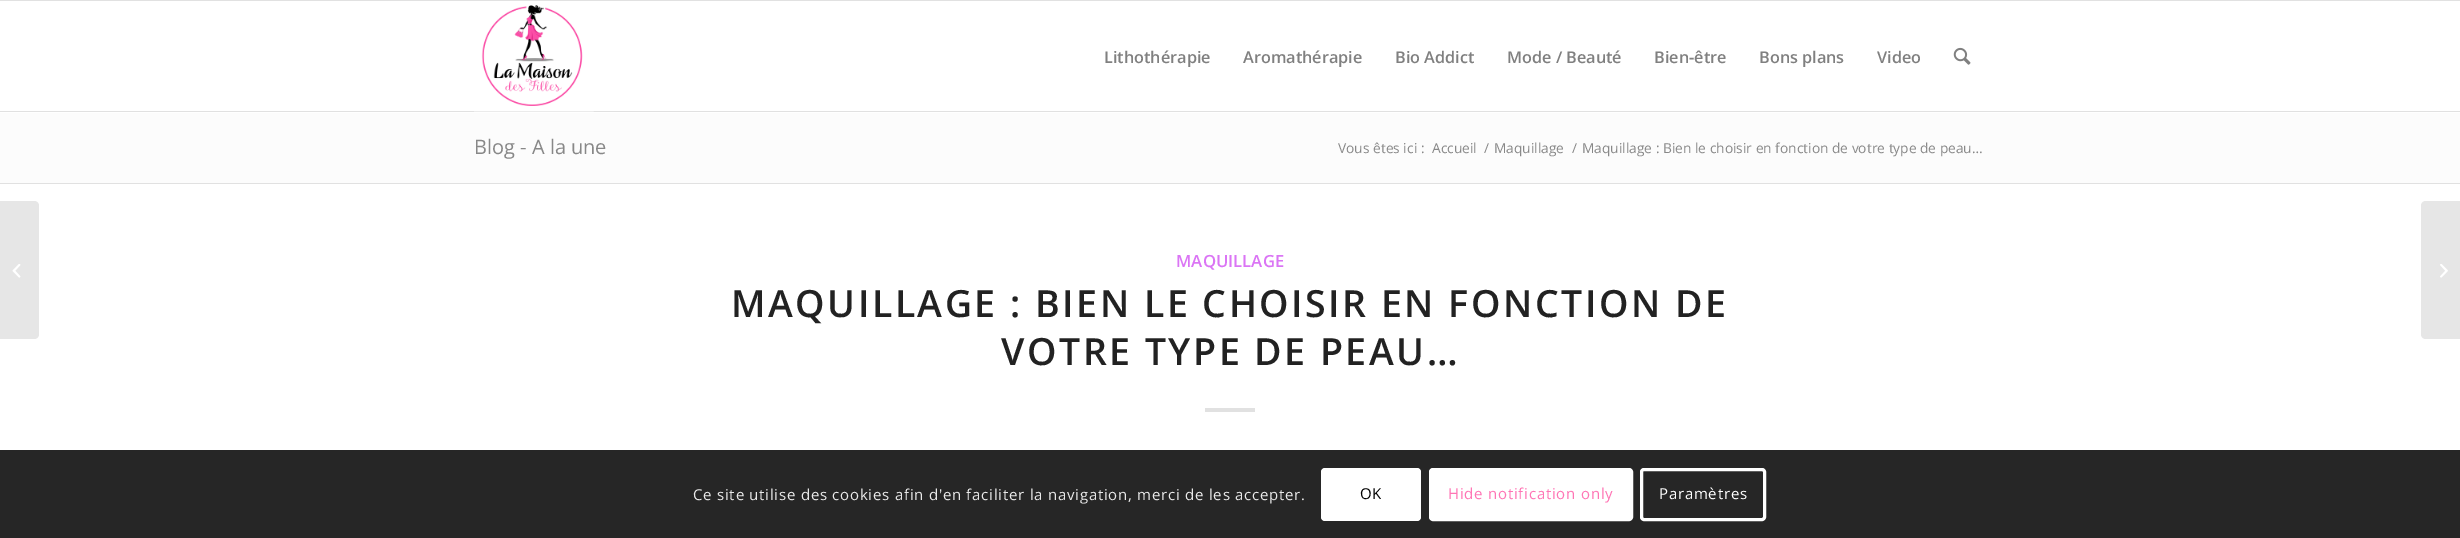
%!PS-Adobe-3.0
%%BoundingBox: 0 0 2460 538
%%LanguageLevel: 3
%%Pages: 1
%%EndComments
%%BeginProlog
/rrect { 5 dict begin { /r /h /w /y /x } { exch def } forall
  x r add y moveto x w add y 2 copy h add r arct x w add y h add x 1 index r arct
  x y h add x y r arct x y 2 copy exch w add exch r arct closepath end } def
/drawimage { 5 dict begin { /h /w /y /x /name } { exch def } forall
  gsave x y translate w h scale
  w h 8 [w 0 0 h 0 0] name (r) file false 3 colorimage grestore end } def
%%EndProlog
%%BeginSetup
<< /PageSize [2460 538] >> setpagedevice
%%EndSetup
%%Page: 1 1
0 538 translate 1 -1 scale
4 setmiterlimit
1 setgray
0 0 2460 538 rectfill
0.882 setgray
0 0 2460 1 rectfill
0 111 2460 1 rectfill
(images/1.raw) 474 5 120 107 drawimage
(images/2.raw) 1953 47 18 18 drawimage
0.902 setgray
newpath 0 201 moveto 34 201 lineto 37 201 39 203 39 206 curveto 39 334 lineto 39 337 37 339 34 339 curveto 0 339 lineto closepath fill
(images/3.raw) 12 264 9 14 drawimage
0.988 setgray
0 113 2460 70 rectfill
0.882 setgray
0 183 2460 1 rectfill
1205 408 50 4 rectfill
0.902 setgray
newpath 2426 201 moveto 2460 201 lineto 2460 339 lineto 2426 339 lineto 2423 339 2421 337 2421 334 curveto 2421 206 lineto 2421 203 2423 201 2426 201 curveto closepath fill
(images/4.raw) 2440 264 8 14 drawimage
0.149 setgray
0 450 2460 88 rectfill
1 setgray
1321 468 100 53 4 rrect fill
1430.5 469.5 201 50 2.5 rrect gsave fill grestore
3 setlinewidth
stroke
1641.5 469.5 123 50 2.5 rrect stroke
/OpenSans-SemiBold [16.25 0 0 -16.25 0 0] selectfont
0.502 setgray
1104 63 moveto (Lithothérapie) show
1243 63 moveto (Aromathérapie) show
1395 63 moveto (Bio Addict) show
1507 63 moveto (Mode / Beauté) show
1654 63 moveto (Bien-être) show
1759 63 moveto (Bons plans) show
1877 63 moveto (Video) show
/OpenSans-Regular [20 0 0 -20 0 0] selectfont
0.533 setgray
474 154 moveto (Blog - A la une) show
/OpenSans-Regular [13.75 0 0 -13.75 0 0] selectfont
1338 153 moveto (Vous êtes ici :) show
1432 153 moveto (Accueil) show
1484 153 moveto (/) show
1494 153 moveto (Maquillage) show
1572 153 moveto (/) show
1582 153 moveto (Maquillage : Bien le choisir en fonction de votre type de peau…) show
/OpenSans-SemiBold [16.75 0 0 -16.75 0 0] selectfont
0.859 0.459 0.961 setrgbcolor
1176 267 moveto (MAQUILLAGE) show
/OpenSans-SemiBold [37.5 0 0 -37.5 0 0] selectfont
0.133 setgray
731 317 moveto 2.5 0 (MAQUILLAGE : BIEN LE CHOISIR EN FONCTION DE) ashow
1001 365 moveto 2.5 0 (VOTRE TYPE DE PEAU…) ashow
/OpenSans-Regular [15 0 0 -15 0 0] selectfont
0.914 setgray
693 500 moveto 0.75 0 (Ce site utilise des cookies afin d'en faciliter la navigation, merci de les accepter.) ashow
0 setgray
1360 499 moveto 0.75 0 (OK) ashow
1 0.459 0.71 setrgbcolor
1448 499 moveto 0.75 0 (Hide notification only) ashow
1 setgray
1659 499 moveto 0.75 0 (Paramètres) ashow
showpage
%%EOF
